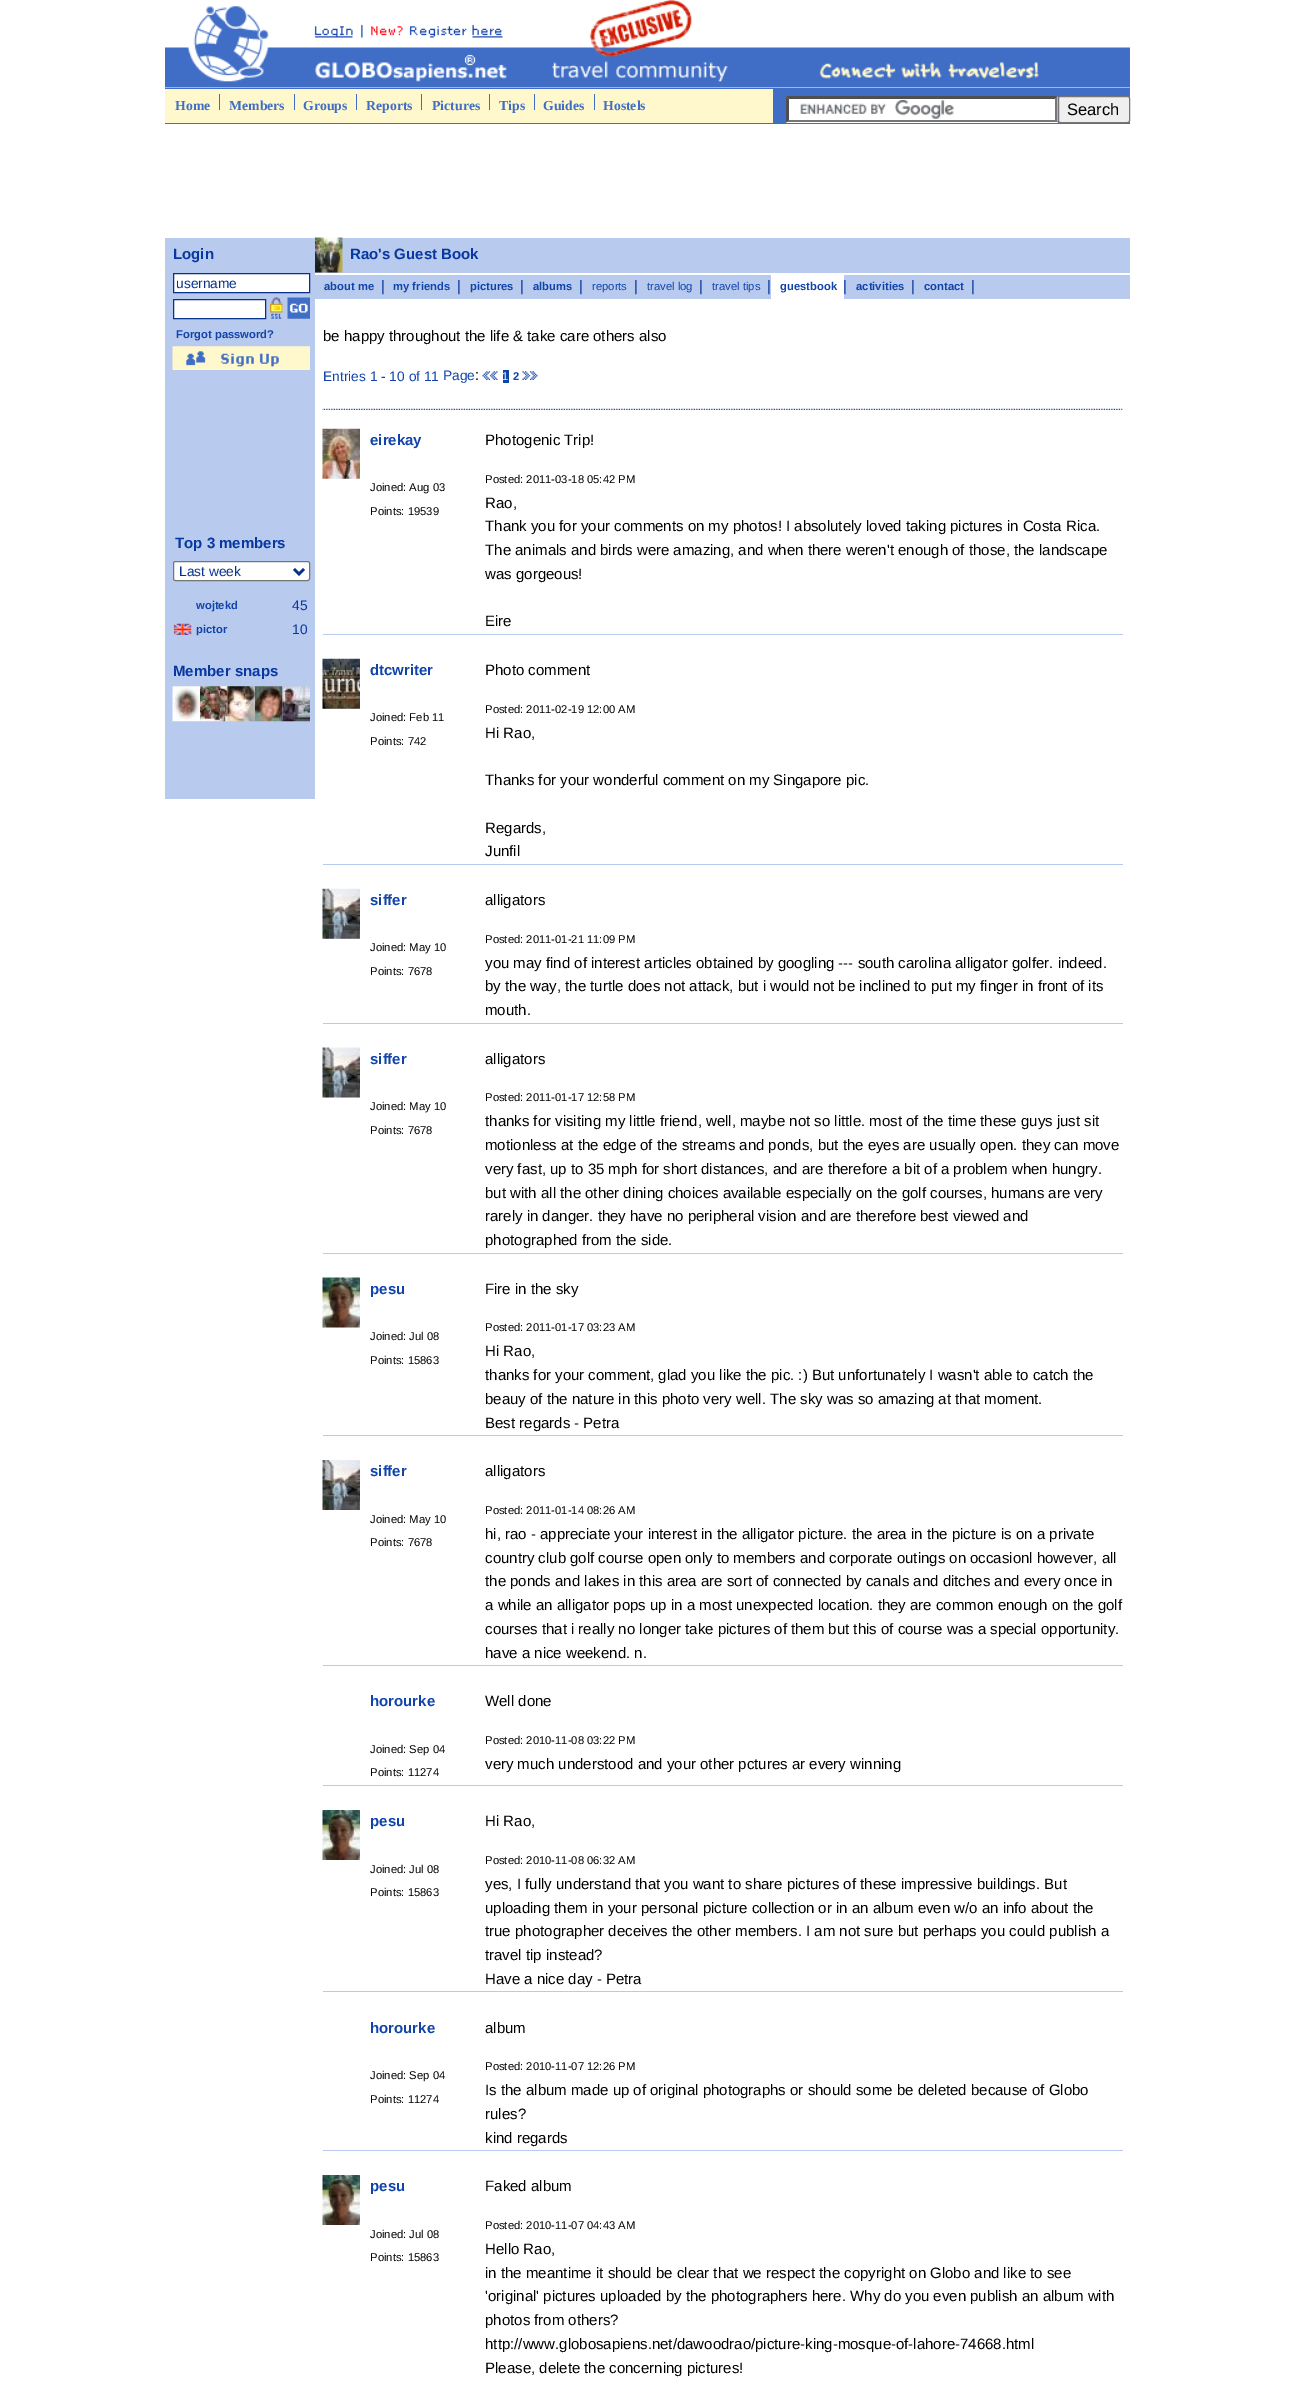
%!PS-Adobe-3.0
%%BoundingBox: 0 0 1294 2392
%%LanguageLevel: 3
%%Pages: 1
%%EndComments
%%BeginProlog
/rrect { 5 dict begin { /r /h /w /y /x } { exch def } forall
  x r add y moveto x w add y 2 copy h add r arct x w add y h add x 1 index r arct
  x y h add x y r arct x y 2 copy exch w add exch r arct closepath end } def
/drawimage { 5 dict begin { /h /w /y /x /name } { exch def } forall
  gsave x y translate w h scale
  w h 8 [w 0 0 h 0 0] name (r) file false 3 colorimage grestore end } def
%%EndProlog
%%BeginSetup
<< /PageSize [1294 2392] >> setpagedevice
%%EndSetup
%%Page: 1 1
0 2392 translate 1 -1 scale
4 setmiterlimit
1 setgray
0 0 1294 2392 rectfill
(images/1.raw) 165 0 965 88 drawimage
0.251 0.431 0.776 setrgbcolor
165 88 965 36 rectfill
1 0.973 0.8 setrgbcolor
165 89 608 34 rectfill
0.251 0.431 0.776 setrgbcolor
219 94 1 16 rectfill
294 94 1 16 rectfill
356 94 1 16 rectfill
421 94 1 16 rectfill
489 94 1 16 rectfill
534 94 1 16 rectfill
594 94 1 16 rectfill
1 setgray
786 96 272 27 rectfill
(images/2.raw) 800 100 154 19 drawimage
0.31 setgray
newpath 786 96 moveto 1058 96 lineto 1055 99 lineto 789 99 lineto closepath fill
0.463 setgray
newpath 1057.5 96 moveto 1057.5 122.5 lineto 1055 120 lineto 1055 99 lineto closepath fill
newpath 1058 122 moveto 786 122 lineto 789 120 lineto 1055 120 lineto closepath fill
0.31 setgray
newpath 786 122.5 moveto 786 96 lineto 789 99 lineto 789 120 lineto closepath fill
0.937 setgray
1058.5 96.5 71 26 2 rrect gsave fill grestore
0.463 setgray
stroke
0.722 0.792 0.933 setrgbcolor
165 238 150 561 rectfill
1 setgray
newpath 173.5 273.5 moveto 309.5 273.5 lineto 309.5 292.5 lineto 173.5 292.5 lineto closepath gsave fill grestore
0.031 0.192 0.549 setrgbcolor
stroke
1 setgray
newpath 173.5 299.5 moveto 265.5 299.5 lineto 265.5 318.5 lineto 173.5 318.5 lineto closepath gsave fill grestore
0.031 0.192 0.549 setrgbcolor
stroke
(images/3.raw) 270 297 13 22 drawimage
(images/4.raw) 287 297 23 22 drawimage
(images/5.raw) 172 346 138 24 drawimage
1 setgray
173.5 561.5 136 19 2 rrect gsave fill grestore
0.463 setgray
stroke
0.031 0.192 0.549 setrgbcolor
2.5 setlinewidth
newpath 294 569 moveto 299 574 lineto 304 569 lineto stroke
(images/6.raw) 173 623 19 12 drawimage
(images/7.raw) 172 686 28 36 drawimage
(images/8.raw) 200 686 28 36 drawimage
(images/9.raw) 227 686 28 36 drawimage
(images/10.raw) 255 686 28 36 drawimage
(images/11.raw) 282 686 28 36 drawimage
0.722 0.792 0.933 setrgbcolor
315 238 815 35 rectfill
(images/12.raw) 315 237 28 36 drawimage
315 275 815 24 rectfill
1 setgray
771 275 73 24 rectfill
(images/13.raw) 482 371 16 9 drawimage
0.067 0.267 0.667 setrgbcolor
503 370 6 13 rectfill
(images/14.raw) 522 371 16 9 drawimage
(images/15.raw) 322 408 801 2 drawimage
(images/16.raw) 322 428 38 51 drawimage
0.722 0.792 0.933 setrgbcolor
323 634 800 1 rectfill
(images/17.raw) 322 658 38 51 drawimage
323 864 800 1 rectfill
(images/18.raw) 322 888 38 51 drawimage
323 1023 800 1 rectfill
(images/19.raw) 322 1047 38 51 drawimage
323 1253 800 1 rectfill
(images/20.raw) 322 1277 38 51 drawimage
323 1435 800 1 rectfill
(images/21.raw) 322 1460 38 50 drawimage
323 1665 800 1 rectfill
323 1785 800 1 rectfill
(images/22.raw) 322 1810 38 50 drawimage
323 1991 800 1 rectfill
323 2150 800 1 rectfill
(images/22.raw) 322 2175 38 50 drawimage
/LiberationSerif-Bold [13.75 0 0 -13.75 0 0] selectfont
0.251 0.431 0.776 setrgbcolor
175 110 moveto (Home) show
229 110 moveto (Members) show
303 110 moveto (Groups) show
366 110 moveto (Reports) show
432 110 moveto (Pictures) show
499 110 moveto (Tips) show
543 110 moveto (Guides) show
603 110 moveto (Hostels) show
/LiberationSans-Regular [16.5 0 0 -16.5 0 0] selectfont
0 setgray
1067 115 moveto (Search) show
/LiberationSans-Bold [15 0 0 -15 0 0] selectfont
0.027 0.216 0.631 setrgbcolor
173 259 moveto (Login) show
/LiberationSans-Regular [13.75 0 0 -13.75 0 0] selectfont
0.031 0.192 0.549 setrgbcolor
176 288 moveto (username) show
/LiberationSans-Bold [11.25 0 0 -11.25 0 0] selectfont
0.067 0.267 0.667 setrgbcolor
176 338 moveto (Forgot password?) show
/LiberationSans-Bold [15 0 0 -15 0 0] selectfont
0.027 0.216 0.631 setrgbcolor
175 548 moveto (Top 3 members) show
/LiberationSans-Regular [13.75 0 0 -13.75 0 0] selectfont
0.031 0.192 0.549 setrgbcolor
179 576 moveto (Last week) show
/LiberationSans-Bold [11.25 0 0 -11.25 0 0] selectfont
0.067 0.267 0.667 setrgbcolor
196 609 moveto (wojtekd) show
/LiberationSans-Regular [13.75 0 0 -13.75 0 0] selectfont
0.027 0.216 0.631 setrgbcolor
292 610 moveto (45) show
/LiberationSans-Bold [11.25 0 0 -11.25 0 0] selectfont
0.067 0.267 0.667 setrgbcolor
196 633 moveto (pictor) show
/LiberationSans-Regular [13.75 0 0 -13.75 0 0] selectfont
0.027 0.216 0.631 setrgbcolor
292 634 moveto (10) show
/LiberationSans-Bold [15 0 0 -15 0 0] selectfont
173 676 moveto (Member snaps) show
350 259 moveto (Rao's Guest Book) show
/LiberationSans-Bold [11.25 0 0 -11.25 0 0] selectfont
0.067 0.267 0.667 setrgbcolor
324 290 moveto (about me) show
/LiberationSans-Regular [15 0 0 -15 0 0] selectfont
0.027 0.216 0.631 setrgbcolor
381 291 moveto (|) show
/LiberationSans-Bold [11.25 0 0 -11.25 0 0] selectfont
0.067 0.267 0.667 setrgbcolor
393 290 moveto (my friends) show
/LiberationSans-Regular [15 0 0 -15 0 0] selectfont
0.027 0.216 0.631 setrgbcolor
457 291 moveto (|) show
/LiberationSans-Bold [11.25 0 0 -11.25 0 0] selectfont
0.067 0.267 0.667 setrgbcolor
470 290 moveto (pictures) show
/LiberationSans-Regular [15 0 0 -15 0 0] selectfont
0.027 0.216 0.631 setrgbcolor
520 291 moveto (|) show
/LiberationSans-Bold [11.25 0 0 -11.25 0 0] selectfont
0.067 0.267 0.667 setrgbcolor
533 290 moveto (albums) show
/LiberationSans-Regular [15 0 0 -15 0 0] selectfont
0.027 0.216 0.631 setrgbcolor
579 291 moveto (|) show
/LiberationSans-Regular [11.25 0 0 -11.25 0 0] selectfont
0.067 0.267 0.667 setrgbcolor
592 290 moveto (reports) show
/LiberationSans-Regular [15 0 0 -15 0 0] selectfont
0.027 0.216 0.631 setrgbcolor
634 291 moveto (|) show
/LiberationSans-Regular [11.25 0 0 -11.25 0 0] selectfont
0.067 0.267 0.667 setrgbcolor
647 290 moveto (travel log) show
/LiberationSans-Regular [15 0 0 -15 0 0] selectfont
0.027 0.216 0.631 setrgbcolor
699 291 moveto (|) show
/LiberationSans-Regular [11.25 0 0 -11.25 0 0] selectfont
0.067 0.267 0.667 setrgbcolor
712 290 moveto (travel tips) show
/LiberationSans-Regular [15 0 0 -15 0 0] selectfont
0.027 0.216 0.631 setrgbcolor
767 291 moveto (|) show
/LiberationSans-Bold [11.25 0 0 -11.25 0 0] selectfont
0.067 0.267 0.667 setrgbcolor
780 290 moveto (guestbook) show
/LiberationSans-Regular [15 0 0 -15 0 0] selectfont
0.027 0.216 0.631 setrgbcolor
843 291 moveto (|) show
/LiberationSans-Bold [11.25 0 0 -11.25 0 0] selectfont
0.067 0.267 0.667 setrgbcolor
856 290 moveto (activities) show
/LiberationSans-Regular [15 0 0 -15 0 0] selectfont
0.027 0.216 0.631 setrgbcolor
911 291 moveto (|) show
/LiberationSans-Bold [11.25 0 0 -11.25 0 0] selectfont
0.067 0.267 0.667 setrgbcolor
924 290 moveto (contact) show
/LiberationSans-Regular [15 0 0 -15 0 0] selectfont
0.027 0.216 0.631 setrgbcolor
971 291 moveto (|) show
0 setgray
323 341 moveto (be happy throughout the life & take care others also) show
/LiberationSans-Regular [13.75 0 0 -13.75 0 0] selectfont
0.067 0.267 0.667 setrgbcolor
323 381 moveto (Entries 1 - 10 of 11) show
443 380 moveto (Page) show
/LiberationSans-Regular [15 0 0 -15 0 0] selectfont
0 setgray
475 380 moveto (:) show
/LiberationSans-Regular [11.25 0 0 -11.25 0 0] selectfont
1 setgray
502 380 moveto (1) show
/LiberationSans-Bold [11.25 0 0 -11.25 0 0] selectfont
0.067 0.267 0.667 setrgbcolor
513 380 moveto (2) show
/LiberationSans-Bold [15 0 0 -15 0 0] selectfont
370 445 moveto (eirekay) show
/LiberationSans-Regular [11.25 0 0 -11.25 0 0] selectfont
0 setgray
370 491 moveto (Joined: Aug 03) show
370 515 moveto (Points: 19539) show
/LiberationSans-Regular [15 0 0 -15 0 0] selectfont
485 445 moveto (Photogenic Trip!) show
/LiberationSans-Regular [11.25 0 0 -11.25 0 0] selectfont
485 483 moveto (Posted: 2011-03-18 05:42 PM) show
/LiberationSans-Regular [15 0 0 -15 0 0] selectfont
485 508 moveto (Rao,) show
485 531 moveto (Thank you for your comments on my photos! I absolutely loved taking pictures in Costa Rica.) show
485 555 moveto (The animals and birds were amazing, and when there weren't enough of those, the landscape) show
485 579 moveto (was gorgeous!) show
485 626 moveto (Eire) show
/LiberationSans-Bold [15 0 0 -15 0 0] selectfont
0.067 0.267 0.667 setrgbcolor
370 675 moveto (dtcwriter) show
/LiberationSans-Regular [11.25 0 0 -11.25 0 0] selectfont
0 setgray
370 721 moveto (Joined: Feb 11) show
370 745 moveto (Points: 742) show
/LiberationSans-Regular [15 0 0 -15 0 0] selectfont
485 675 moveto (Photo comment) show
/LiberationSans-Regular [11.25 0 0 -11.25 0 0] selectfont
485 713 moveto (Posted: 2011-02-19 12:00 AM) show
/LiberationSans-Regular [15 0 0 -15 0 0] selectfont
485 738 moveto (Hi Rao,) show
485 785 moveto (Thanks for your wonderful comment on my Singapore pic.) show
485 833 moveto (Regards,) show
485 856 moveto (Junfil) show
/LiberationSans-Bold [15 0 0 -15 0 0] selectfont
0.067 0.267 0.667 setrgbcolor
370 905 moveto (siffer) show
/LiberationSans-Regular [11.25 0 0 -11.25 0 0] selectfont
0 setgray
370 951 moveto (Joined: May 10) show
370 975 moveto (Points: 7678) show
/LiberationSans-Regular [15 0 0 -15 0 0] selectfont
485 905 moveto (alligators) show
/LiberationSans-Regular [11.25 0 0 -11.25 0 0] selectfont
485 943 moveto (Posted: 2011-01-21 11:09 PM) show
/LiberationSans-Regular [15 0 0 -15 0 0] selectfont
485 968 moveto (you may find of interest articles obtained by googling --- south carolina alligator golfer. indeed.) show
485 991 moveto (by the way, the turtle does not attack, but i would not be inclined to put my finger in front of its) show
485 1015 moveto (mouth.) show
/LiberationSans-Bold [15 0 0 -15 0 0] selectfont
0.067 0.267 0.667 setrgbcolor
370 1064 moveto (siffer) show
/LiberationSans-Regular [11.25 0 0 -11.25 0 0] selectfont
0 setgray
370 1110 moveto (Joined: May 10) show
370 1134 moveto (Points: 7678) show
/LiberationSans-Regular [15 0 0 -15 0 0] selectfont
485 1064 moveto (alligators) show
/LiberationSans-Regular [11.25 0 0 -11.25 0 0] selectfont
485 1101 moveto (Posted: 2011-01-17 12:58 PM) show
/LiberationSans-Regular [15 0 0 -15 0 0] selectfont
485 1126 moveto (thanks for visiting my little friend, well, maybe not so little. most of the time these guys just sit) show
485 1150 moveto (motionless at the edge of the streams and ponds, but the eyes are usually open. they can move) show
485 1174 moveto (very fast, up to 35 mph for short distances, and are therefore a bit of a problem when hungry.) show
485 1198 moveto (but with all the other dining choices available especially on the golf courses, humans are very) show
485 1221 moveto (rarely in danger. they have no peripheral vision and are therefore best viewed and) show
485 1245 moveto (photographed from the side.) show
/LiberationSans-Bold [15 0 0 -15 0 0] selectfont
0.067 0.267 0.667 setrgbcolor
370 1294 moveto (pesu) show
/LiberationSans-Regular [11.25 0 0 -11.25 0 0] selectfont
0 setgray
370 1340 moveto (Joined: Jul 08) show
370 1364 moveto (Points: 15863) show
/LiberationSans-Regular [15 0 0 -15 0 0] selectfont
485 1294 moveto (Fire in the sky) show
/LiberationSans-Regular [11.25 0 0 -11.25 0 0] selectfont
485 1331 moveto (Posted: 2011-01-17 03:23 AM) show
/LiberationSans-Regular [15 0 0 -15 0 0] selectfont
485 1356 moveto (Hi Rao,) show
485 1380 moveto (thanks for your comment, glad you like the pic. :\) But unfortunately I wasn't able to catch the) show
485 1404 moveto (beauy of the nature in this photo very well. The sky was so amazing at that moment.) show
485 1428 moveto (Best regards - Petra) show
/LiberationSans-Bold [15 0 0 -15 0 0] selectfont
0.067 0.267 0.667 setrgbcolor
370 1476 moveto (siffer) show
/LiberationSans-Regular [11.25 0 0 -11.25 0 0] selectfont
0 setgray
370 1523 moveto (Joined: May 10) show
370 1546 moveto (Points: 7678) show
/LiberationSans-Regular [15 0 0 -15 0 0] selectfont
485 1476 moveto (alligators) show
/LiberationSans-Regular [11.25 0 0 -11.25 0 0] selectfont
485 1514 moveto (Posted: 2011-01-14 08:26 AM) show
/LiberationSans-Regular [15 0 0 -15 0 0] selectfont
485 1539 moveto (hi, rao - appreciate your interest in the alligator picture. the area in the picture is on a private) show
485 1563 moveto (country club golf course open only to members and corporate outings on occasionl however, all) show
485 1586 moveto (the ponds and lakes in this area are sort of connected by canals and ditches and every once in) show
485 1610 moveto (a while an alligator pops up in a most unexpected location. they are common enough on the golf) show
485 1634 moveto (courses that i really no longer take pictures of them but this of course was a special opportunity.) show
485 1658 moveto (have a nice weekend. n.) show
/LiberationSans-Bold [15 0 0 -15 0 0] selectfont
0.067 0.267 0.667 setrgbcolor
370 1706 moveto (horourke) show
/LiberationSans-Regular [11.25 0 0 -11.25 0 0] selectfont
0 setgray
370 1753 moveto (Joined: Sep 04) show
370 1776 moveto (Points: 11274) show
/LiberationSans-Regular [15 0 0 -15 0 0] selectfont
485 1706 moveto (Well done) show
/LiberationSans-Regular [11.25 0 0 -11.25 0 0] selectfont
485 1744 moveto (Posted: 2010-11-08 03:22 PM) show
/LiberationSans-Regular [15 0 0 -15 0 0] selectfont
485 1769 moveto (very much understood and your other pctures ar every winning) show
/LiberationSans-Bold [15 0 0 -15 0 0] selectfont
0.067 0.267 0.667 setrgbcolor
370 1826 moveto (pesu) show
/LiberationSans-Regular [11.25 0 0 -11.25 0 0] selectfont
0 setgray
370 1873 moveto (Joined: Jul 08) show
370 1896 moveto (Points: 15863) show
/LiberationSans-Regular [15 0 0 -15 0 0] selectfont
485 1826 moveto (Hi Rao,) show
/LiberationSans-Regular [11.25 0 0 -11.25 0 0] selectfont
485 1864 moveto (Posted: 2010-11-08 06:32 AM) show
/LiberationSans-Regular [15 0 0 -15 0 0] selectfont
485 1889 moveto (yes, I fully understand that you want to share pictures of these impressive buildings. But) show
485 1913 moveto (uploading them in your personal picture collection or in an album even w/o an info about the) show
485 1936 moveto (true photographer deceives the other members. I am not sure but perhaps you could publish a) show
485 1960 moveto (travel tip instead?) show
485 1984 moveto (Have a nice day - Petra) show
/LiberationSans-Bold [15 0 0 -15 0 0] selectfont
0.067 0.267 0.667 setrgbcolor
370 2033 moveto (horourke) show
/LiberationSans-Regular [11.25 0 0 -11.25 0 0] selectfont
0 setgray
370 2079 moveto (Joined: Sep 04) show
370 2103 moveto (Points: 11274) show
/LiberationSans-Regular [15 0 0 -15 0 0] selectfont
485 2033 moveto (album) show
/LiberationSans-Regular [11.25 0 0 -11.25 0 0] selectfont
485 2070 moveto (Posted: 2010-11-07 12:26 PM) show
/LiberationSans-Regular [15 0 0 -15 0 0] selectfont
485 2095 moveto (Is the album made up of original photographs or should some be deleted because of Globo) show
485 2119 moveto (rules?) show
485 2143 moveto (kind regards) show
/LiberationSans-Bold [15 0 0 -15 0 0] selectfont
0.067 0.267 0.667 setrgbcolor
370 2191 moveto (pesu) show
/LiberationSans-Regular [11.25 0 0 -11.25 0 0] selectfont
0 setgray
370 2238 moveto (Joined: Jul 08) show
370 2261 moveto (Points: 15863) show
/LiberationSans-Regular [15 0 0 -15 0 0] selectfont
485 2191 moveto (Faked album) show
/LiberationSans-Regular [11.25 0 0 -11.25 0 0] selectfont
485 2229 moveto (Posted: 2010-11-07 04:43 AM) show
/LiberationSans-Regular [15 0 0 -15 0 0] selectfont
485 2254 moveto (Hello Rao,) show
485 2278 moveto (in the meantime it should be clear that we respect the copyright on Globo and like to see) show
485 2301 moveto ('original' pictures uploaded by the photographers here. Why do you even publish an album with) show
485 2325 moveto (photos from others?) show
485 2349 moveto (http://www.globosapiens.net/dawoodrao/picture-king-mosque-of-lahore-74668.html) show
485 2373 moveto (Please, delete the concerning pictures!) show
showpage
%%EOF
